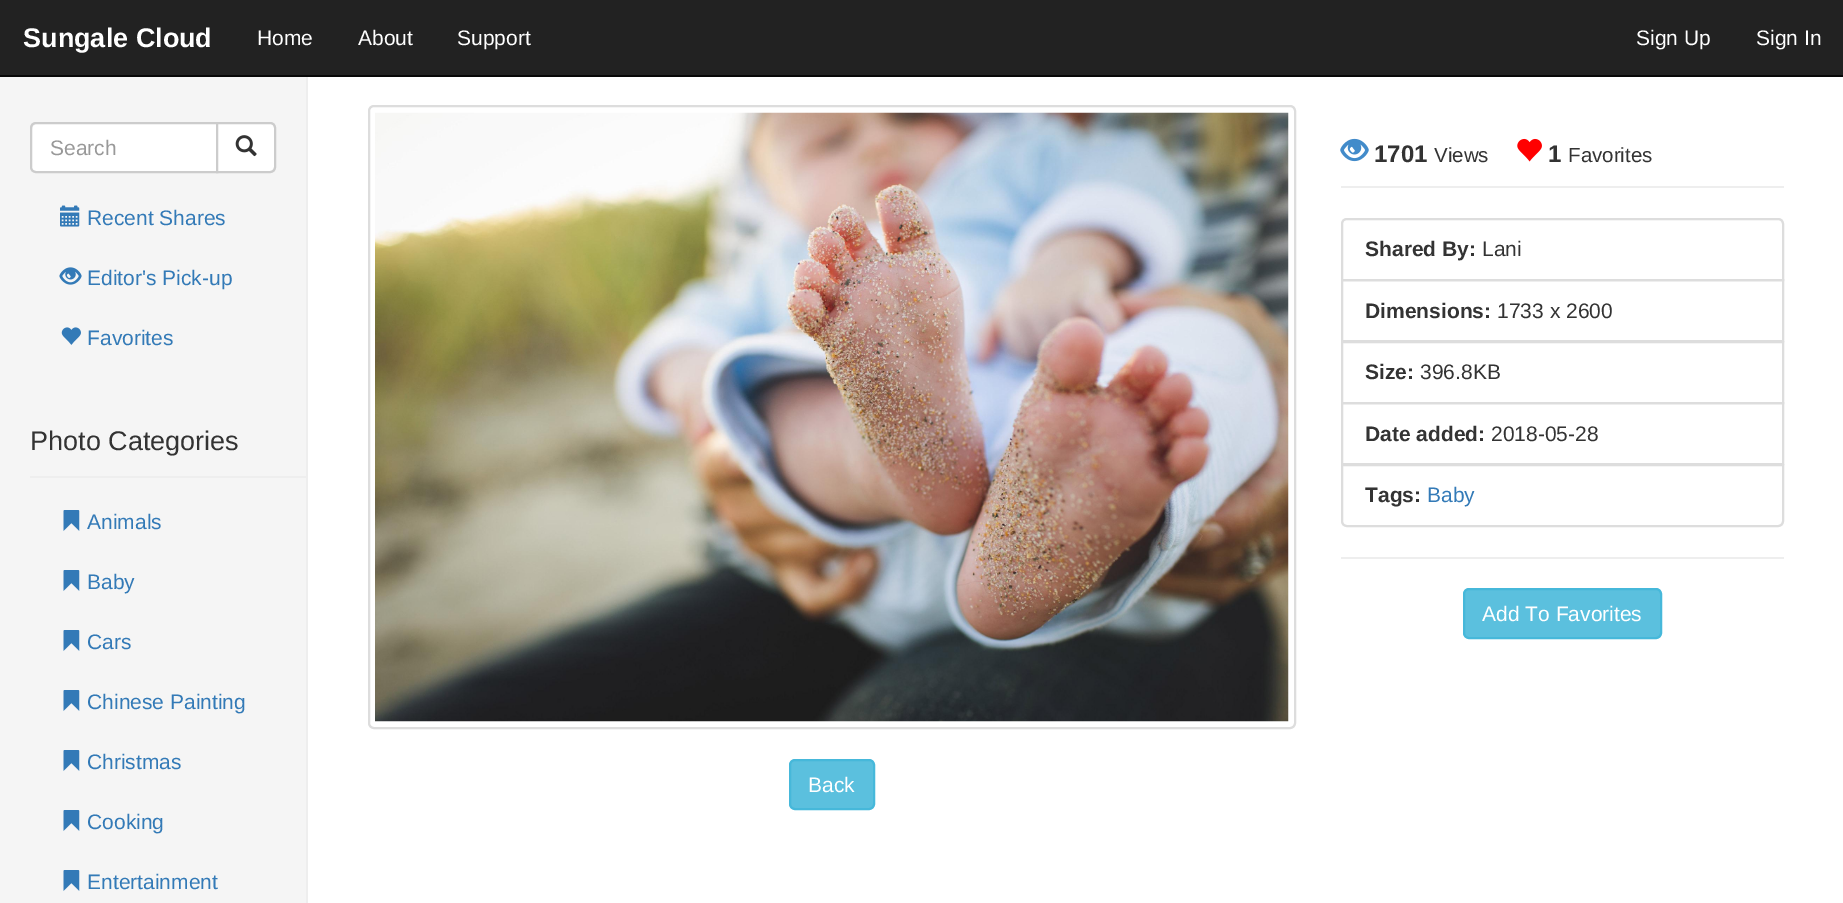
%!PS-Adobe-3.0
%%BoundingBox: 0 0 1843 903
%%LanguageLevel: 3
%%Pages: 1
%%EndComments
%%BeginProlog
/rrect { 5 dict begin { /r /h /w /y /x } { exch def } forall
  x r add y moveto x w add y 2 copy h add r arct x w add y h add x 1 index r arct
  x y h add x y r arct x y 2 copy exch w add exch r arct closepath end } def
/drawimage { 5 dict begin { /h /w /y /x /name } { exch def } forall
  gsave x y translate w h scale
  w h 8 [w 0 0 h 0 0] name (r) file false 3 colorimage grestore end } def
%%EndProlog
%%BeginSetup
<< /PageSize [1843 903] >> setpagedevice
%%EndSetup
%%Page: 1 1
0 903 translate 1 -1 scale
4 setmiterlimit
1 setgray
0 0 1843 903 rectfill
0.133 setgray
0 0 1843 75 rectfill
0.031 setgray
0 75 1843 2 rectfill
0.961 setgray
0 77 306 826 rectfill
0.933 setgray
306 77 2 826 rectfill
1 setgray
newpath 36 122 moveto 218 122 lineto 218 173 lineto 36 173 lineto 32.5 173 30 170.5 30 167 curveto 30 128 lineto 30 124.5 32.5 122 36 122 curveto closepath fill
0.925 setgray
newpath 36 124 moveto 216 124 lineto 216 123 lineto 37 123 lineto 34 123 32 125 32 128 curveto 32 129 lineto 32 127 34 124 36 124 curveto closepath fill
0.8 setgray
2 setlinewidth
newpath 36 123 moveto 217 123 lineto 217 172 lineto 36 172 lineto 33 172 31 170 31 167 curveto 31 128 lineto 31 125 33 123 36 123 curveto closepath stroke
1 setgray
newpath 217 123 moveto 270 123 lineto 273 123 275 125 275 128 curveto 275 167 lineto 275 170 273 172 270 172 curveto 217 172 lineto closepath gsave fill grestore
0.8 setgray
stroke
(images/1.raw) 235 135 22 22 drawimage
(images/2.raw) 60 205 20 22 drawimage
(images/3.raw) 59 267 23 18 drawimage
(images/4.raw) 61 327 20 18 drawimage
0.933 setgray
30 476 276 2 rectfill
(images/5.raw) 63 510 17 21 drawimage
(images/5.raw) 63 570 17 21 drawimage
(images/5.raw) 63 630 17 21 drawimage
(images/5.raw) 63 690 17 21 drawimage
(images/5.raw) 63 750 17 21 drawimage
(images/5.raw) 63 810 17 21 drawimage
(images/5.raw) 63 870 17 21 drawimage
1341 186 443 2 rectfill
(images/6.raw) 1340 138 29 24 drawimage
(images/7.raw) 1517 138 25 24 drawimage
0.867 setgray
newpath 1347 219 moveto 1778 219 lineto 1781 219 1783 221 1783 224 curveto 1783 280 lineto 1342 280 lineto 1342 224 lineto 1342 221 1344 219 1347 219 curveto closepath stroke
1342 280 441 61 rectstroke
1342 342 441 61 rectstroke
1342 403 441 61 rectstroke
1 setgray
newpath 1342 465 moveto 1783 465 lineto 1783 521 lineto 1783 524 1781 526 1778 526 curveto 1347 526 lineto 1344 526 1342 524 1342 521 curveto closepath gsave fill grestore
0.867 setgray
stroke
0.933 setgray
1341 557 443 2 rectfill
0.357 0.753 0.871 setrgbcolor
1464 589 197 49 5 rrect gsave fill grestore
0.275 0.722 0.855 setrgbcolor
stroke
0.867 setgray
369 106 926 622 5 rrect stroke
(images/8.raw) 375 112 914 610 drawimage
0.357 0.753 0.871 setrgbcolor
790 760 84 49 5 rrect gsave fill grestore
0.275 0.722 0.855 setrgbcolor
stroke
/LiberationSans-Bold [27 0 0 -27 0 0] selectfont
1 setgray
23 47 moveto (Sungale Cloud) show
/LiberationSans-Regular [21 0 0 -21 0 0] selectfont
257 45 moveto (Home) show
358 45 moveto (About) show
457 45 moveto (Support) show
1636 45 moveto (Sign Up) show
1756 45 moveto (Sign In) show
0.6 setgray
50 155 moveto (Search) show
0.2 0.478 0.718 setrgbcolor
87 225 moveto (Recent Shares) show
87 285 moveto (Editor's Pick-up) show
87 345 moveto (Favorites) show
/LiberationSans-Regular [27 0 0 -27 0 0] selectfont
0.2 setgray
30 450 moveto (Photo Categories) show
/LiberationSans-Regular [21 0 0 -21 0 0] selectfont
0.2 0.478 0.718 setrgbcolor
87 529 moveto (Animals) show
87 589 moveto (Baby) show
87 649 moveto (Cars) show
87 709 moveto (Chinese Painting) show
87 769 moveto (Christmas) show
87 829 moveto (Cooking) show
87 889 moveto (Entertainment) show
/LiberationSans-Bold [24 0 0 -24 0 0] selectfont
0.2 setgray
1374 162 moveto (1701) show
/LiberationSans-Regular [20.5 0 0 -20.5 0 0] selectfont
1434 162 moveto (Views) show
/LiberationSans-Bold [24 0 0 -24 0 0] selectfont
1548 162 moveto (1) show
/LiberationSans-Regular [20.5 0 0 -20.5 0 0] selectfont
1568 162 moveto (Favorites) show
/LiberationSans-Bold [21 0 0 -21 0 0] selectfont
1365 256 moveto (Shared By:) show
/LiberationSans-Regular [21 0 0 -21 0 0] selectfont
1482 256 moveto (Lani) show
/LiberationSans-Bold [21 0 0 -21 0 0] selectfont
1365 318 moveto (Dimensions:) show
/LiberationSans-Regular [21 0 0 -21 0 0] selectfont
1497 318 moveto (1733 x 2600) show
/LiberationSans-Bold [21 0 0 -21 0 0] selectfont
1365 379 moveto (Size:) show
/LiberationSans-Regular [21 0 0 -21 0 0] selectfont
1420 379 moveto (396.8KB) show
/LiberationSans-Bold [21 0 0 -21 0 0] selectfont
1365 441 moveto (Date added:) show
/LiberationSans-Regular [21 0 0 -21 0 0] selectfont
1491 441 moveto (2018-05-28) show
/LiberationSans-Bold [21 0 0 -21 0 0] selectfont
1365 502 moveto (Tags:) show
/LiberationSans-Regular [21 0 0 -21 0 0] selectfont
0.2 0.478 0.718 setrgbcolor
1427 502 moveto (Baby) show
1 setgray
1482 621 moveto (Add To Favorites) show
808 792 moveto (Back) show
showpage
%%EOF
